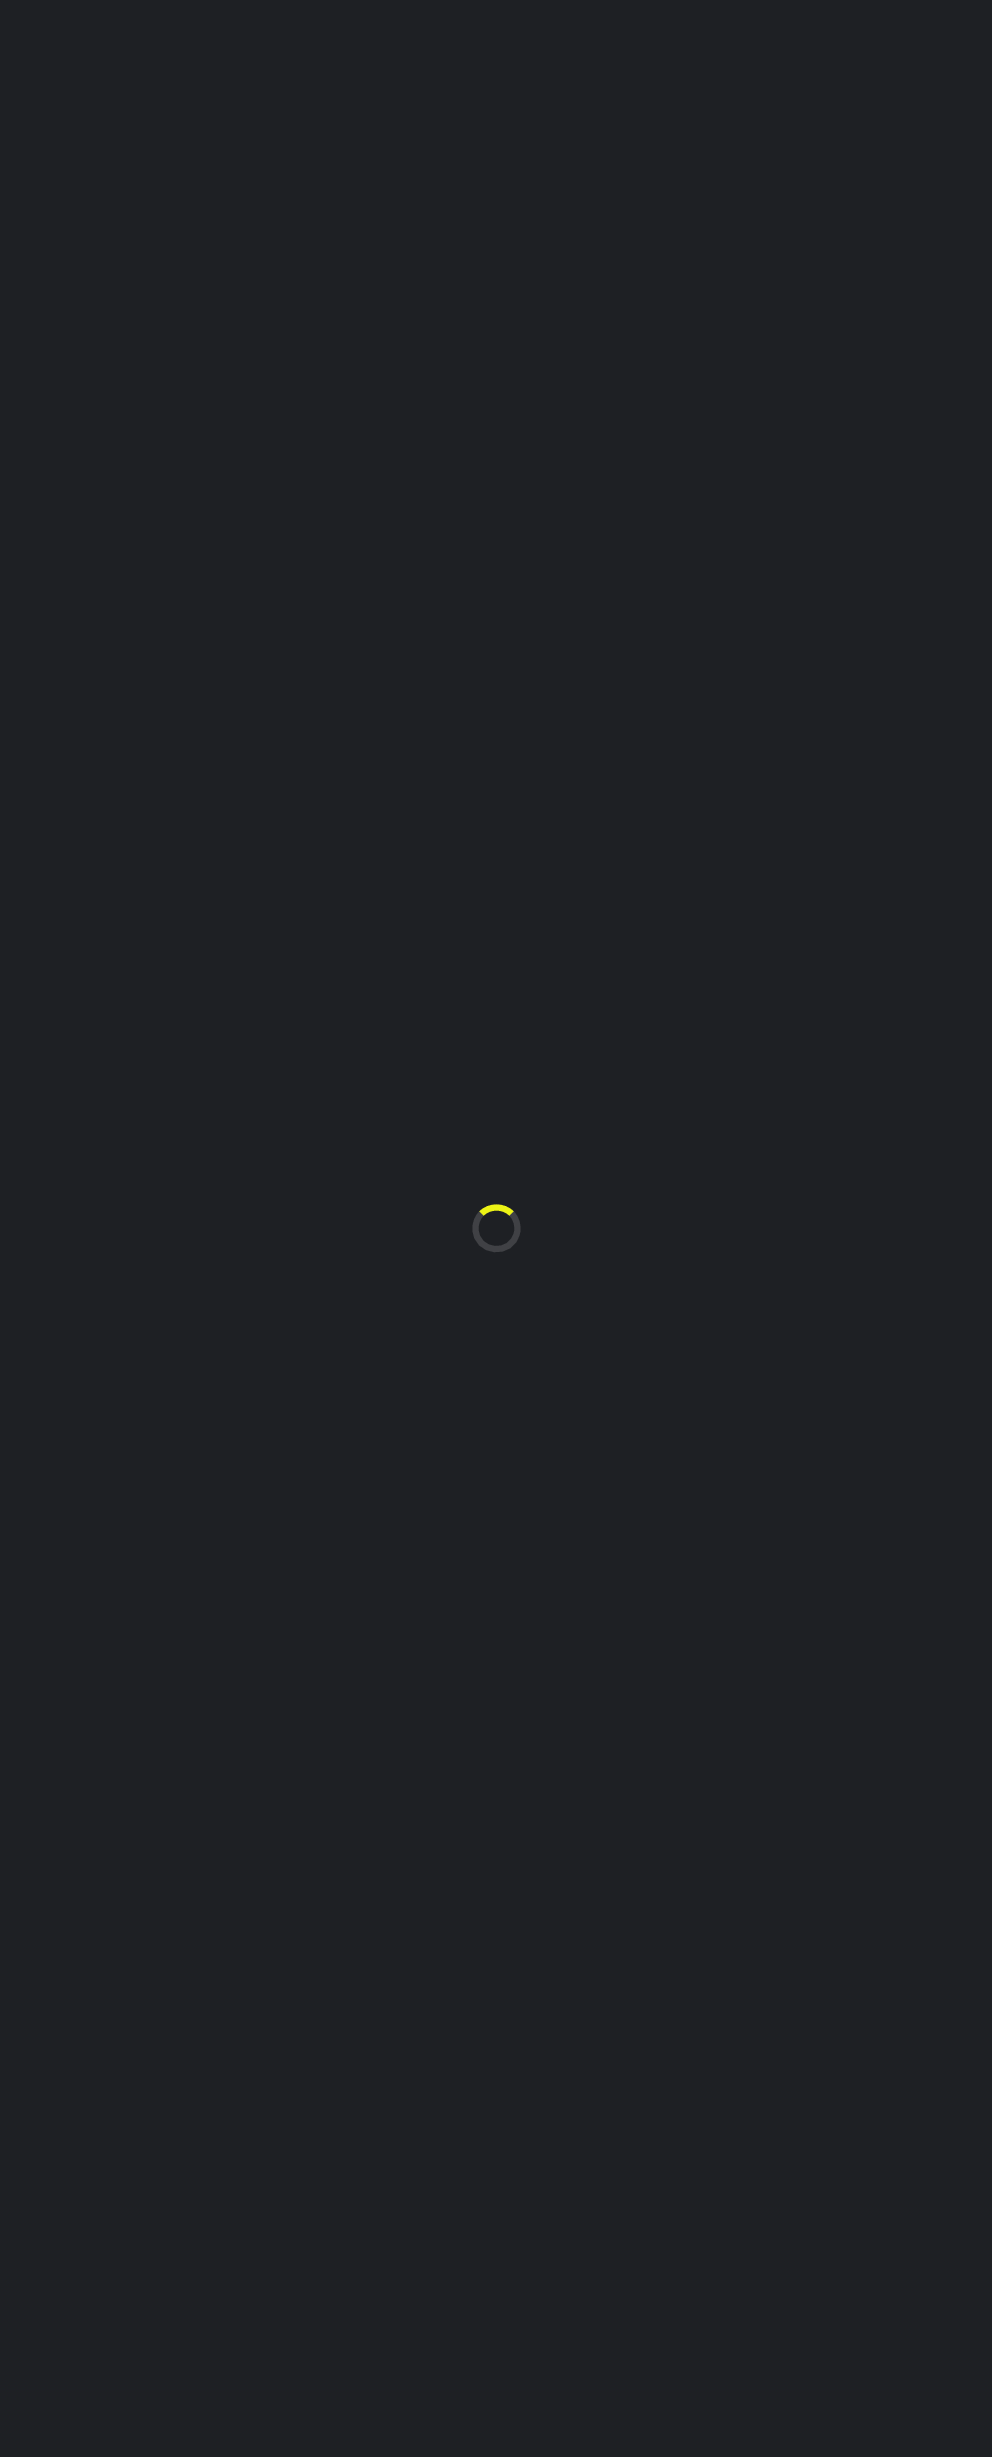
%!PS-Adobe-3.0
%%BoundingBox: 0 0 992 2457
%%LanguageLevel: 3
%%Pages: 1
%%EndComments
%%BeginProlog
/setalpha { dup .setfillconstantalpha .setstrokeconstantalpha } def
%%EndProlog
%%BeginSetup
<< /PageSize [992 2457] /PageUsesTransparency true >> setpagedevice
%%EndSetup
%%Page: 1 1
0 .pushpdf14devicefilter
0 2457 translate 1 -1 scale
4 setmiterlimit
0.118 0.125 0.141 setrgbcolor
0 0 992 2457 rectfill
0.929 0.957 0.086 setrgbcolor
6 setlinewidth
newpath 481.5 1213.5 moveto 489.5 1205.5 503.5 1205.5 511.5 1213.5 curveto stroke
0.15 setalpha
1 setgray
newpath 511.5 1213.5 moveto 516.5 1218.5 518.5 1226 517 1232.5 curveto 512 1257 475.5 1253.5 475.5 1228.5 curveto 475.5 1223 477.5 1217.5 481.5 1213.5 curveto stroke
.poppdf14devicefilter showpage
%%EOF
